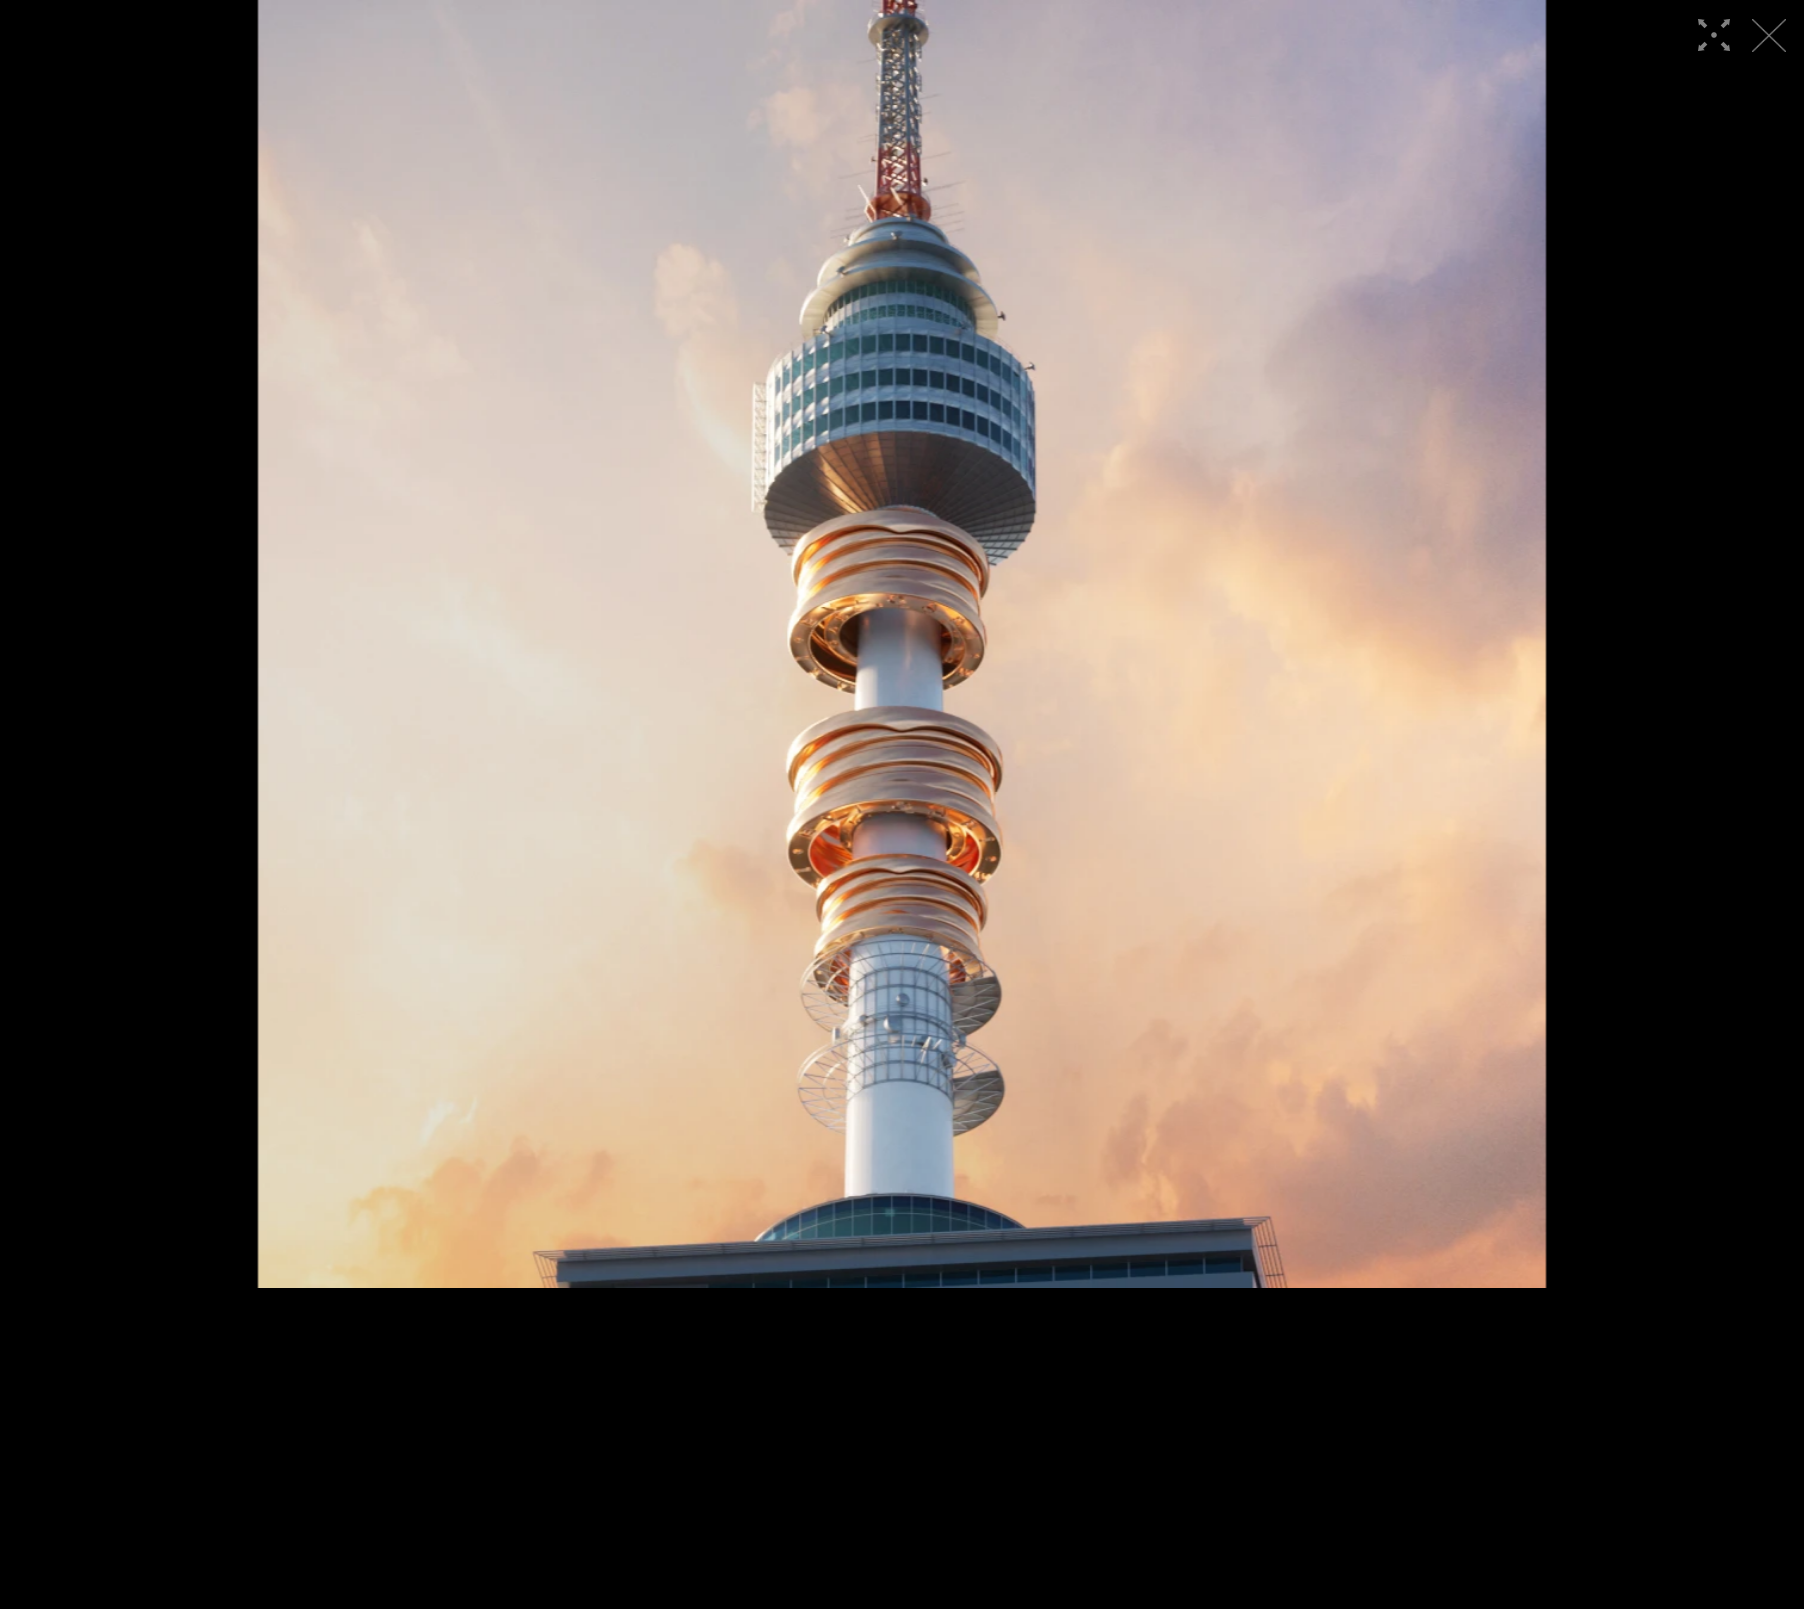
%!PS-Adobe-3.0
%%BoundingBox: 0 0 1804 1609
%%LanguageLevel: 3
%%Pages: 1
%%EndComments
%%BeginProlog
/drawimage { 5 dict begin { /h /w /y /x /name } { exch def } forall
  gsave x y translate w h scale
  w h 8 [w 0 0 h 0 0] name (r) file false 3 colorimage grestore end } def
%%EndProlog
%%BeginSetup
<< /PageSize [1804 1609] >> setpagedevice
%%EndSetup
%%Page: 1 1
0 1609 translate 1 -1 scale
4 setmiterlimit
0 setgray
0 0 1804 1609 rectfill
(images/1.raw) 257 0 1290 1288 drawimage
(images/2.raw) 1698 19 32 32 drawimage
(images/3.raw) 1752 19 34 33 drawimage
showpage
%%EOF
